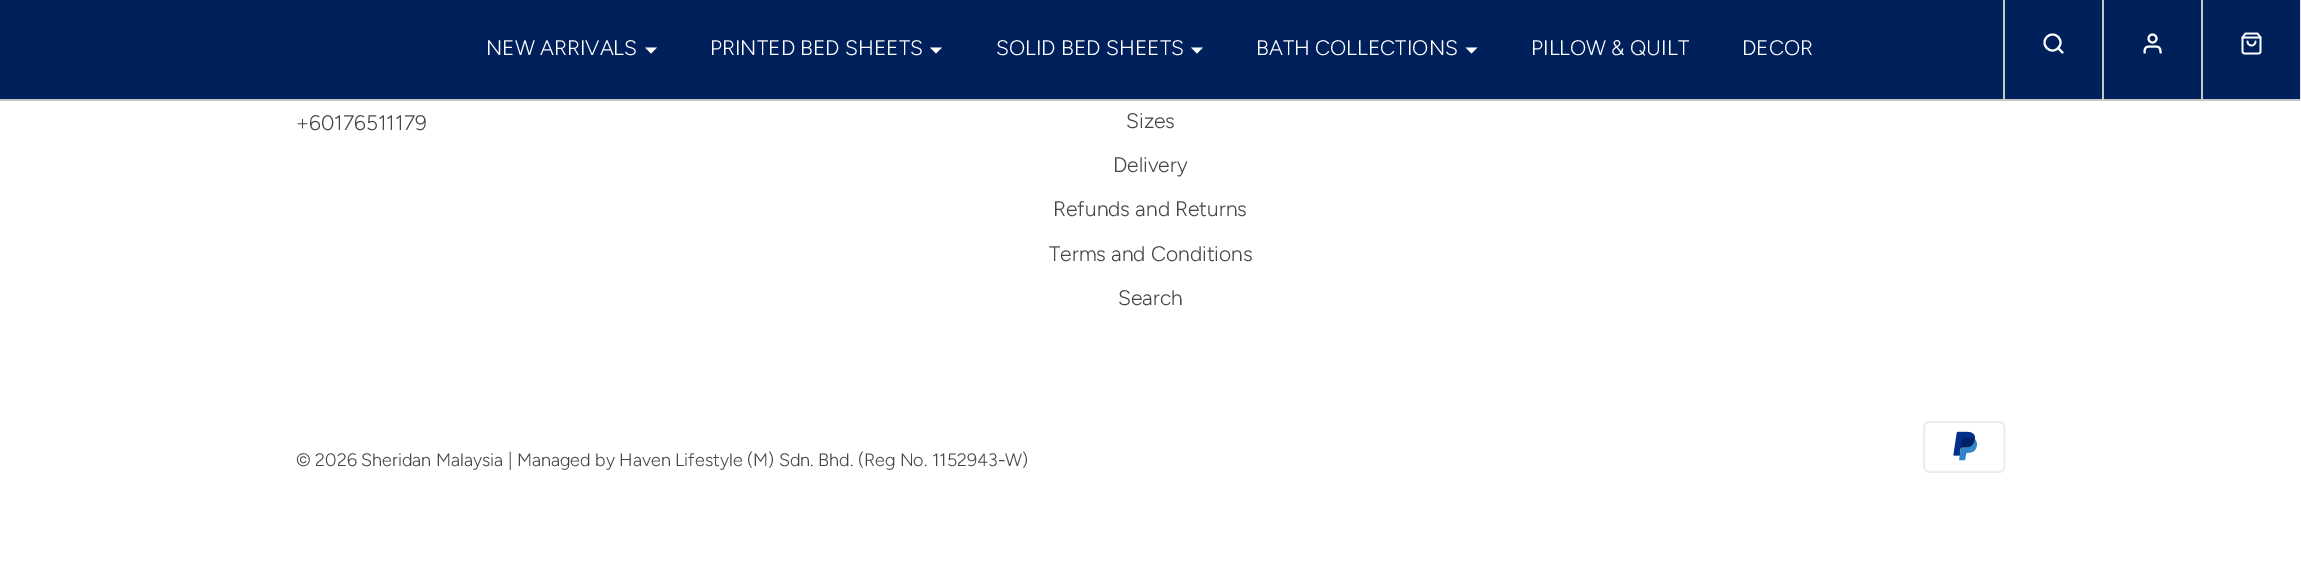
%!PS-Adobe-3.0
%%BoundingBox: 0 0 2301 561
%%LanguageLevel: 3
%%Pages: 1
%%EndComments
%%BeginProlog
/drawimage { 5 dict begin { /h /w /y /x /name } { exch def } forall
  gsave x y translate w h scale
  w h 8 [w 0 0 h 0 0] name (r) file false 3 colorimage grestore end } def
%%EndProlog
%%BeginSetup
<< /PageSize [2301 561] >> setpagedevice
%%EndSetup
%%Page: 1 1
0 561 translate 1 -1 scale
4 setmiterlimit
1 setgray
0 0 2301 561 rectfill
0.902 setgray
2300 0 1 101 rectfill
0 0.125 0.357 setrgbcolor
0 0 2300 99 rectfill
0.776 setgray
0 99 2300 2 rectfill
1 setgray
newpath 645 47.5 moveto 657 47.5 lineto 651 53.5 lineto closepath fill
newpath 930 47.5 moveto 942 47.5 lineto 936 53.5 lineto closepath fill
newpath 1191 47.5 moveto 1203 47.5 lineto 1197 53.5 lineto closepath fill
newpath 1465.5 47.5 moveto 1477.5 47.5 lineto 1471.5 53.5 lineto closepath fill
0.776 setgray
2003 0 2 99 rectfill
1 setgray
2 setlinewidth
newpath 2052.5 42.5 8 0 360 arc closepath stroke
1 setlinecap
1 setlinejoin
newpath 2062.5 52.5 moveto 2058 48 lineto stroke
0.776 setgray
2102 0 2 99 rectfill
1 setgray
0 setlinecap
0 setlinejoin
newpath 2152.5 38.5 4 0 360 arc closepath stroke
1 setlinecap
1 setlinejoin
newpath 2160.5 52.5 moveto 2160.5 46 2158 46.5 2152.5 46.5 curveto 2147 46.5 2144.5 46 2144.5 52.5 curveto stroke
0.776 setgray
2201 0 2 99 rectfill
(images/1.raw) 2241 32 21 23 drawimage
(images/2.raw) 1923 421 83 52 drawimage
/Figtree-Light [21 0 0 -21 0 0] selectfont
1 setgray
486 55 moveto (NEW ARRIVALS) show
710 55 moveto (PRINTED BED SHEETS) show
996 55 moveto (SOLID BED SHEETS) show
1256 55 moveto (BATH COLLECTIONS) show
1531 55 moveto (PILLOW & QUILT) show
1742 55 moveto (DECOR) show
0.275 setgray
296 130 moveto (+60176511179) show
1126 128 moveto (Sizes) show
1113 172 moveto (Delivery) show
1053 216 moveto (Refunds and Returns) show
1049 261 moveto (Terms and Conditions) show
1118 305 moveto (Search) show
/Figtree-Light [18 0 0 -18 0 0] selectfont
296 466 moveto (© 2026 Sheridan Malaysia | Managed by Haven Lifestyle \(M\) Sdn. Bhd. \(Reg No. 1152943-W\)) show
showpage
%%EOF
